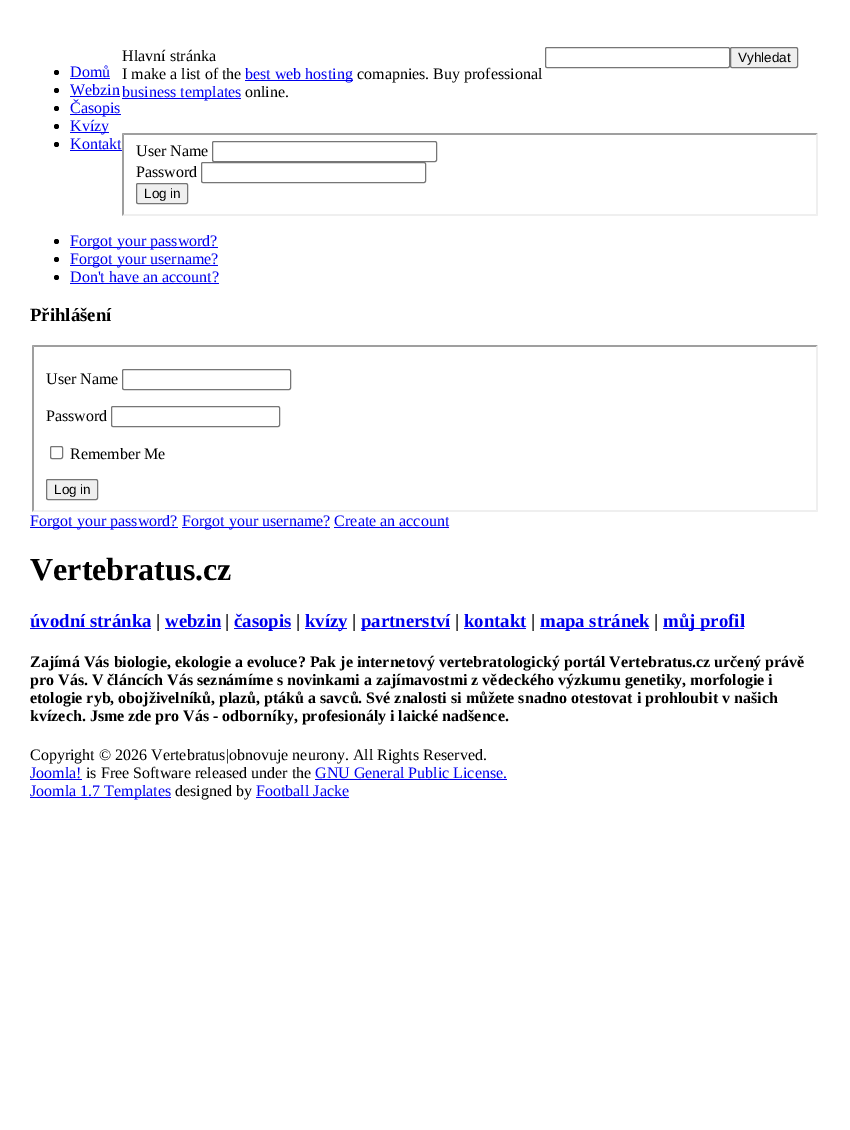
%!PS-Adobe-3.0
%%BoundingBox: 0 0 850 1130
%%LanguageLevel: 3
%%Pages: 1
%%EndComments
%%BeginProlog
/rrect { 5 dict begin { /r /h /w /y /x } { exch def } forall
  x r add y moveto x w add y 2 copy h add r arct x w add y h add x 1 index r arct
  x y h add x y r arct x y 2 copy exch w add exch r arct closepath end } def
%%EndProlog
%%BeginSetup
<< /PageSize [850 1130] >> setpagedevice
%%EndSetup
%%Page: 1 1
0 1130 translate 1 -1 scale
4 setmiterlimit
1 setgray
0 0 850 1130 rectfill
0 0 0.933 setrgbcolor
245 80 108 1 rectfill
122 98 119 1 rectfill
0.624 setgray
newpath 122 133 moveto 818 133 lineto 816 135 lineto 124 135 lineto closepath fill
0.937 setgray
newpath 818 133 moveto 818 216 lineto 816 214 lineto 816 135 lineto closepath fill
newpath 818 216 moveto 122 216 lineto 124 214 lineto 816 214 lineto closepath fill
0.624 setgray
newpath 122 216 moveto 122 133 lineto 124 135 lineto 124 214 lineto closepath fill
0.463 setgray
212.5 141.5 224 20 1.5 rrect stroke
201.5 162.5 224 20 1.5 rrect stroke
0.937 setgray
136.5 183.5 51 20 1.5 rrect gsave fill grestore
0.463 setgray
stroke
0 setgray
newpath 56.5 241.5 2.5 0 360 arc closepath fill
0 0 0.933 setrgbcolor
70 247 148 1 rectfill
0 setgray
newpath 56.5 259.5 2.5 0 360 arc closepath fill
0 0 0.933 setrgbcolor
70 265 148 1 rectfill
0 setgray
newpath 56.5 277.5 2.5 0 360 arc closepath fill
0 0 0.933 setrgbcolor
70 283 149 1 rectfill
0.624 setgray
newpath 32 345 moveto 818 345 lineto 816 347 lineto 34 347 lineto closepath fill
0.937 setgray
newpath 818 345 moveto 818 512 lineto 816 510 lineto 816 347 lineto closepath fill
newpath 818 512 moveto 32 512 lineto 34 510 lineto 816 510 lineto closepath fill
0.624 setgray
newpath 32 512 moveto 32 345 lineto 34 347 lineto 34 510 lineto closepath fill
0.463 setgray
122.5 369.5 168 20 1.5 rrect stroke
111.5 406.5 168 20 1.5 rrect stroke
50.5 446.5 12 12 1.5 rrect stroke
0.937 setgray
46.5 479.5 51 20 1.5 rrect gsave fill grestore
0.463 setgray
stroke
0 0 0.933 setrgbcolor
30 527 148 1 rectfill
182 527 148 1 rectfill
334 527 115 1 rectfill
0.463 setgray
545.5 47.5 184 20 1.5 rrect stroke
0.937 setgray
730.5 47.5 67 20 1.5 rrect gsave fill grestore
0.463 setgray
stroke
0 setgray
newpath 56.5 72.5 2.5 0 360 arc closepath fill
0 0 0.933 setrgbcolor
70 78 40 1 rectfill
0 setgray
newpath 56.5 90.5 2.5 0 360 arc closepath fill
0 0 0.933 setrgbcolor
70 96 50 1 rectfill
0 setgray
newpath 56.5 108.5 2.5 0 360 arc closepath fill
0 0 0.933 setrgbcolor
70 114 51 1 rectfill
0 setgray
newpath 56.5 126.5 2.5 0 360 arc closepath fill
0 0 0.933 setrgbcolor
70 132 39 1 rectfill
0 setgray
newpath 56.5 144.5 2.5 0 360 arc closepath fill
0 0 0.933 setrgbcolor
70 150 52 1 rectfill
30 628 121 1 rectfill
165 628 56 1 rectfill
234 628 57 1 rectfill
305 628 42 1 rectfill
361 628 89 1 rectfill
464 628 62 1 rectfill
540 628 109 1 rectfill
663 628 81 1 rectfill
30 779 52 1 rectfill
315 779 192 1 rectfill
30 797 141 1 rectfill
256 797 93 1 rectfill
/LiberationSerif-Regular [16 0 0 -16 0 0] selectfont
0 setgray
122 61 moveto (Hlavní stránka) show
122 79 moveto (I make a list of the) show
0 0 0.933 setrgbcolor
245 79 moveto (best web hosting) show
0 setgray
357 79 moveto (comapnies. Buy professional) show
0 0 0.933 setrgbcolor
122 97 moveto (business templates) show
0 setgray
245 97 moveto (online.) show
136 156 moveto (User Name) show
136 177 moveto (Password) show
/LiberationSans-Regular [13.5 0 0 -13.5 0 0] selectfont
144 198 moveto (Log in) show
/LiberationSerif-Regular [16 0 0 -16 0 0] selectfont
0 0 0.933 setrgbcolor
70 246 moveto (Forgot your password?) show
70 264 moveto (Forgot your username?) show
70 282 moveto (Don't have an account?) show
/LiberationSerif-Bold [18.75 0 0 -18.75 0 0] selectfont
0 setgray
30 321 moveto (Přihlášení) show
/LiberationSerif-Regular [16 0 0 -16 0 0] selectfont
46 384 moveto (User Name) show
46 421 moveto (Password) show
70 459 moveto (Remember Me) show
/LiberationSans-Regular [13.5 0 0 -13.5 0 0] selectfont
54 494 moveto (Log in) show
/LiberationSerif-Regular [16 0 0 -16 0 0] selectfont
0 0 0.933 setrgbcolor
30 526 moveto (Forgot your password?) show
182 526 moveto (Forgot your username? Create an account) show
/LiberationSans-Regular [13.5 0 0 -13.5 0 0] selectfont
0 setgray
738 62 moveto (Vyhledat) show
/LiberationSerif-Regular [16 0 0 -16 0 0] selectfont
0 0 0.933 setrgbcolor
70 77 moveto (Domů) show
70 95 moveto (Webzin) show
70 113 moveto (Časopis) show
70 131 moveto (Kvízy) show
70 149 moveto (Kontakt) show
/LiberationSerif-Bold [32 0 0 -32 0 0] selectfont
0 setgray
30 580 moveto (Vertebratus.cz) show
/LiberationSerif-Bold [18.75 0 0 -18.75 0 0] selectfont
0 0 0.933 setrgbcolor
30 627 moveto (úvodní stránka) show
0 setgray
156 627 moveto (|) show
0 0 0.933 setrgbcolor
165 627 moveto (webzin) show
0 setgray
225 627 moveto (|) show
0 0 0.933 setrgbcolor
234 627 moveto (časopis) show
0 setgray
296 627 moveto (|) show
0 0 0.933 setrgbcolor
305 627 moveto (kvízy) show
0 setgray
352 627 moveto (|) show
0 0 0.933 setrgbcolor
361 627 moveto (partnerství) show
0 setgray
455 627 moveto (|) show
0 0 0.933 setrgbcolor
464 627 moveto (kontakt) show
0 setgray
531 627 moveto (|) show
0 0 0.933 setrgbcolor
540 627 moveto (mapa stránek) show
0 setgray
654 627 moveto (|) show
0 0 0.933 setrgbcolor
663 627 moveto (můj profil) show
/LiberationSerif-Bold [16 0 0 -16 0 0] selectfont
0 setgray
30 667 moveto (Zajímá Vás biologie, ekologie a evoluce? Pak je internetový vertebratologický portál Vertebratus.cz určený právě) show
30 685 moveto (pro Vás. V článcích Vás seznámíme s novinkami a zajímavostmi z vědeckého výzkumu genetiky, morfologie i) show
30 703 moveto (etologie ryb, obojživelníků, plazů, ptáků a savců. Své znalosti si můžete snadno otestovat i prohloubit v našich) show
30 721 moveto (kvízech. Jsme zde pro Vás - odborníky, profesionály i laické nadšence.) show
/LiberationSerif-Regular [16 0 0 -16 0 0] selectfont
30 760 moveto (Copyright © 2026 Vertebratus|obnovuje neurony. All Rights Reserved.) show
0 0 0.933 setrgbcolor
30 778 moveto (Joomla!) show
0 setgray
86 778 moveto (is Free Software released under the) show
0 0 0.933 setrgbcolor
315 778 moveto (GNU General Public License.) show
30 796 moveto (Joomla 1.7 Templates) show
0 setgray
175 796 moveto (designed by) show
0 0 0.933 setrgbcolor
256 796 moveto (Football Jacke) show
showpage
%%EOF
